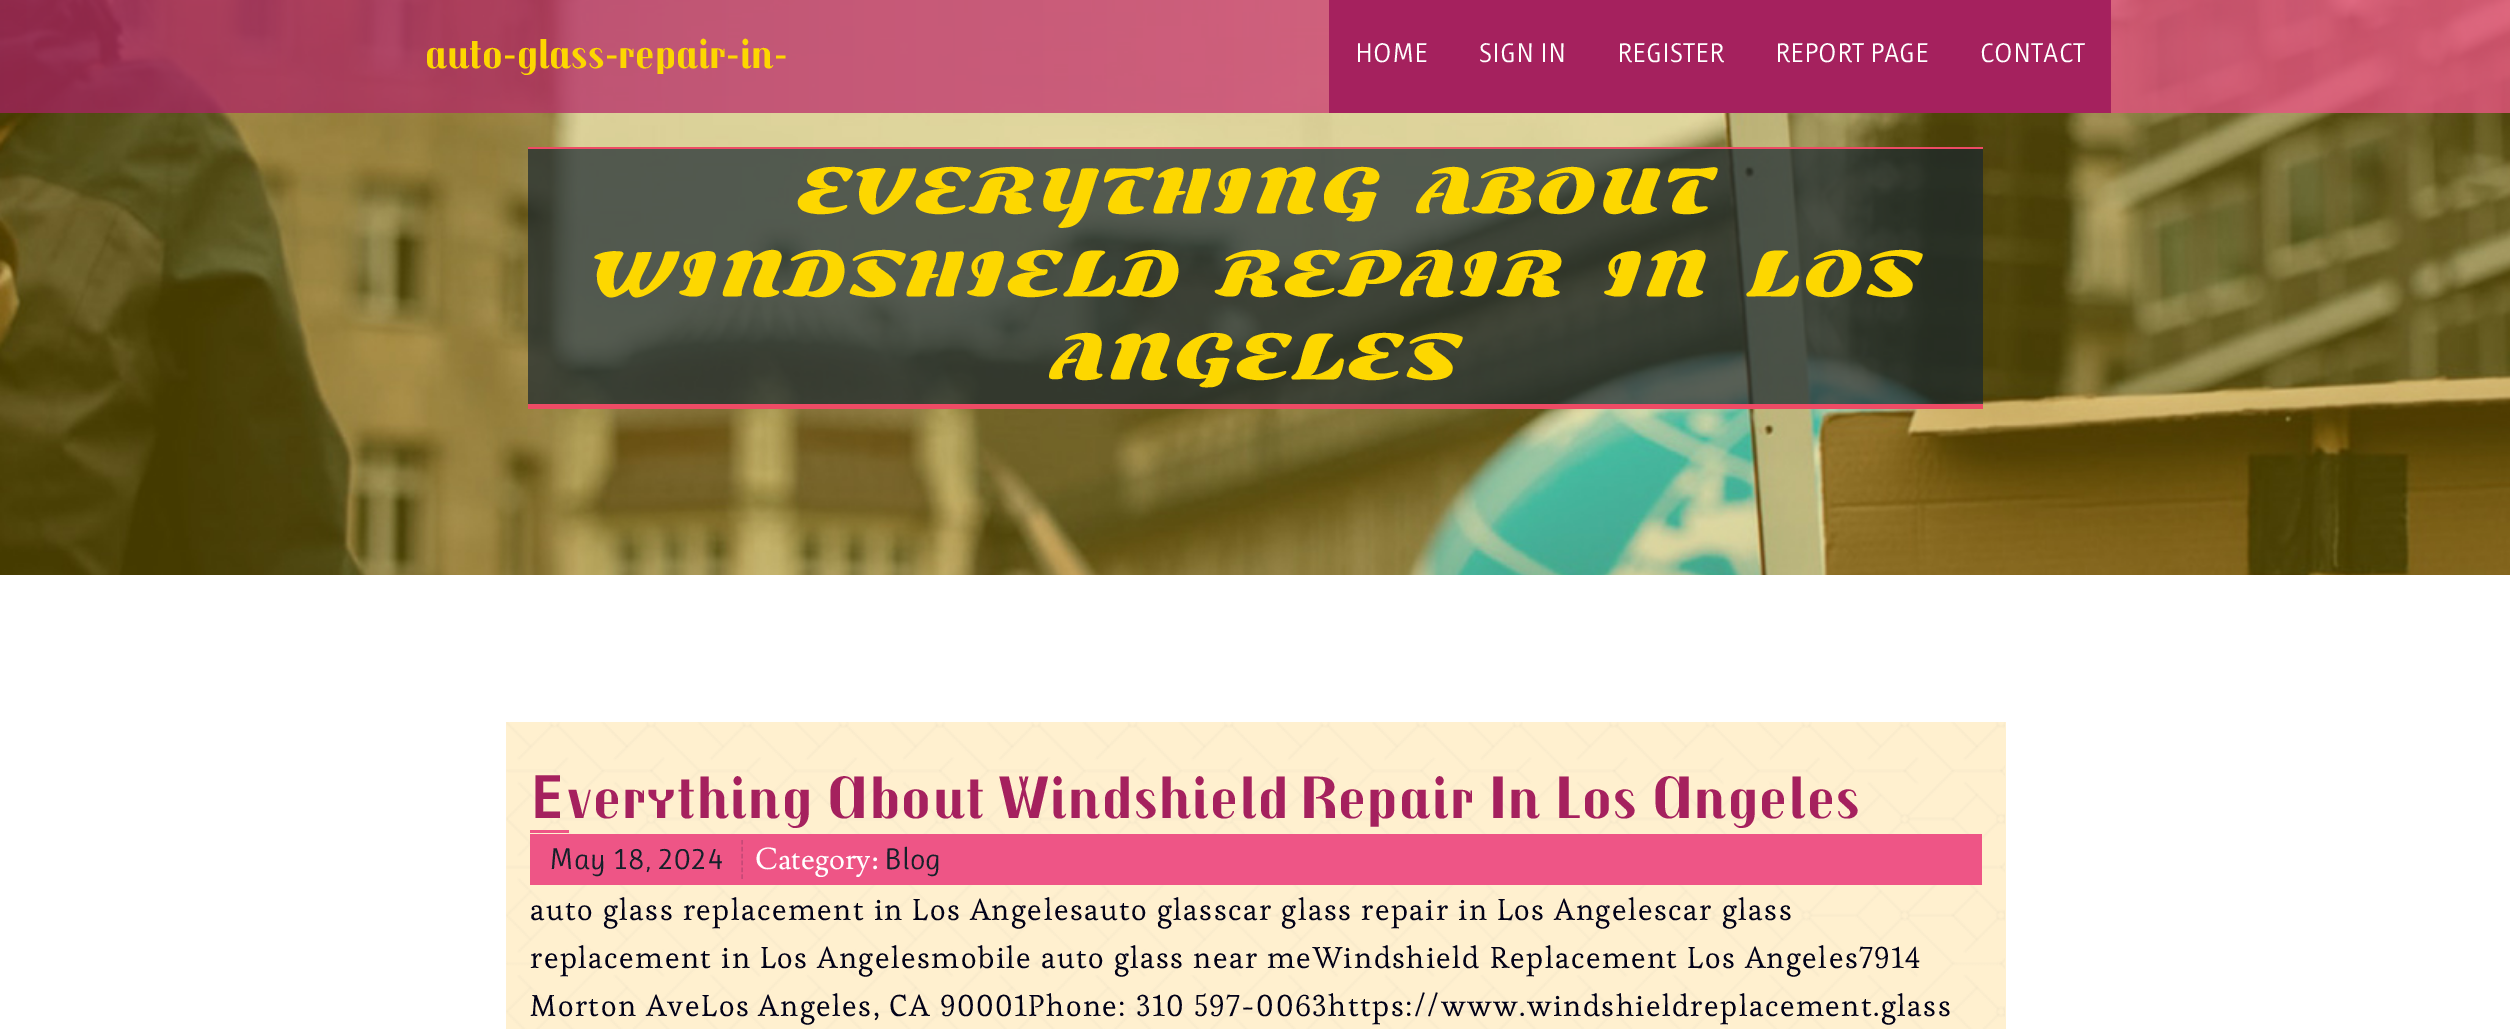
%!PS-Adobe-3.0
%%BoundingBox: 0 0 2510 1029
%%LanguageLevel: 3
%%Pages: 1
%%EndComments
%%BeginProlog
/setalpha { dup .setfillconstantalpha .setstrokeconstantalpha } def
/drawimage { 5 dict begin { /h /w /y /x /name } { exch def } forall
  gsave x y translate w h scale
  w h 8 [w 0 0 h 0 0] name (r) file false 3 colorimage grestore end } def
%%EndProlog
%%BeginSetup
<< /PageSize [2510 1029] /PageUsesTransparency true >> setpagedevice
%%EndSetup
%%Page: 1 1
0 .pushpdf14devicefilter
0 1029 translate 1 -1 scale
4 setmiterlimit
1 setgray
0 0 2510 1029 rectfill
(images/1.raw) 0 0 2510 575 drawimage
0.647 0.129 0.369 setrgbcolor
1329 0 782 113 rectfill
0.7 setalpha
0.094 0.149 0.184 setrgbcolor
528 149 1455 255 rectfill
1 setalpha
0.933 0.294 0.396 setrgbcolor
528 147 1455 2 rectfill
528 404 1455 5 rectfill
1 0.941 0.812 setrgbcolor
506 722 1500 307 rectfill
(images/2.raw) 506 722 1499 307 drawimage
0.933 0.333 0.525 setrgbcolor
530 830 39 3 rectfill
530 834 1452 51 rectfill
0.78 0.286 0.467 setrgbcolor
1.5 setlinewidth
[4.5 2.4] 0 setdash
newpath 742 840 moveto 742 879 lineto stroke
/Trochut-Bold [42 0 0 -42 0 0] selectfont
0.992 0.843 0 setrgbcolor
425 68 moveto (auto-glass-repair-in-) show
/Ruluko-Regular [27 0 0 -27 0 0] selectfont
1 setgray
1355 62 moveto (HOME) show
1479 62 moveto (SIGN IN) show
1617 62 moveto (REGISTER) show
1775 62 moveto (REPORT PAGE) show
1980 62 moveto (CONTACT) show
/SonsieOne-Regular [60 0 0 -60 0 0] selectfont
0.992 0.843 0 setrgbcolor
796 213 moveto 12 0 32 1.5 0 (EVERYTHING ABOUT) awidthshow
591 296 moveto 12 0 32 1.5 0 (WINDSHIELD REPAIR IN) awidthshow
1746 296 moveto 1.5 0 (LOS) ashow
1050 379 moveto 1.5 0 (ANGELES) ashow
/NotoSans-SemiBold [60 0 0 -60 0 0] selectfont
0.647 0.129 0.369 setrgbcolor
530 818 moveto 1.5 0 (E) ashow
/Trochut-Bold [60 0 0 -60 0 0] selectfont
568 818 moveto 1.5 0 (verything About Windshield Repair In Los Angeles) ashow
/Ruluko-Regular [30 0 0 -30 0 0] selectfont
0.082 0.129 0.165 setrgbcolor
549 869 moveto (May 18, 2024) show
/Lusitana-Regular [30 0 0 -30 0 0] selectfont
1 setgray
755 869 moveto (Category:) show
/Ruluko-Regular [30 0 0 -30 0 0] selectfont
0.082 0.129 0.165 setrgbcolor
884 869 moveto (Blog) show
/Esteban-Regular [30 0 0 -30 0 0] selectfont
0.004 0.004 0.094 setrgbcolor
530 920 moveto 1.5 0 (auto glass replacement in Los Angelesauto glasscar glass repair in Los Angelescar glass) ashow
530 968 moveto 1.5 0 (replacement in Los Angelesmobile auto glass near meWindshield Replacement Los Angeles7914) ashow
530 1016 moveto 1.5 0 (Morton AveLos Angeles, CA 90001Phone: 310 597-0063https://www.windshieldreplacement.glass) ashow
.poppdf14devicefilter showpage
%%EOF
